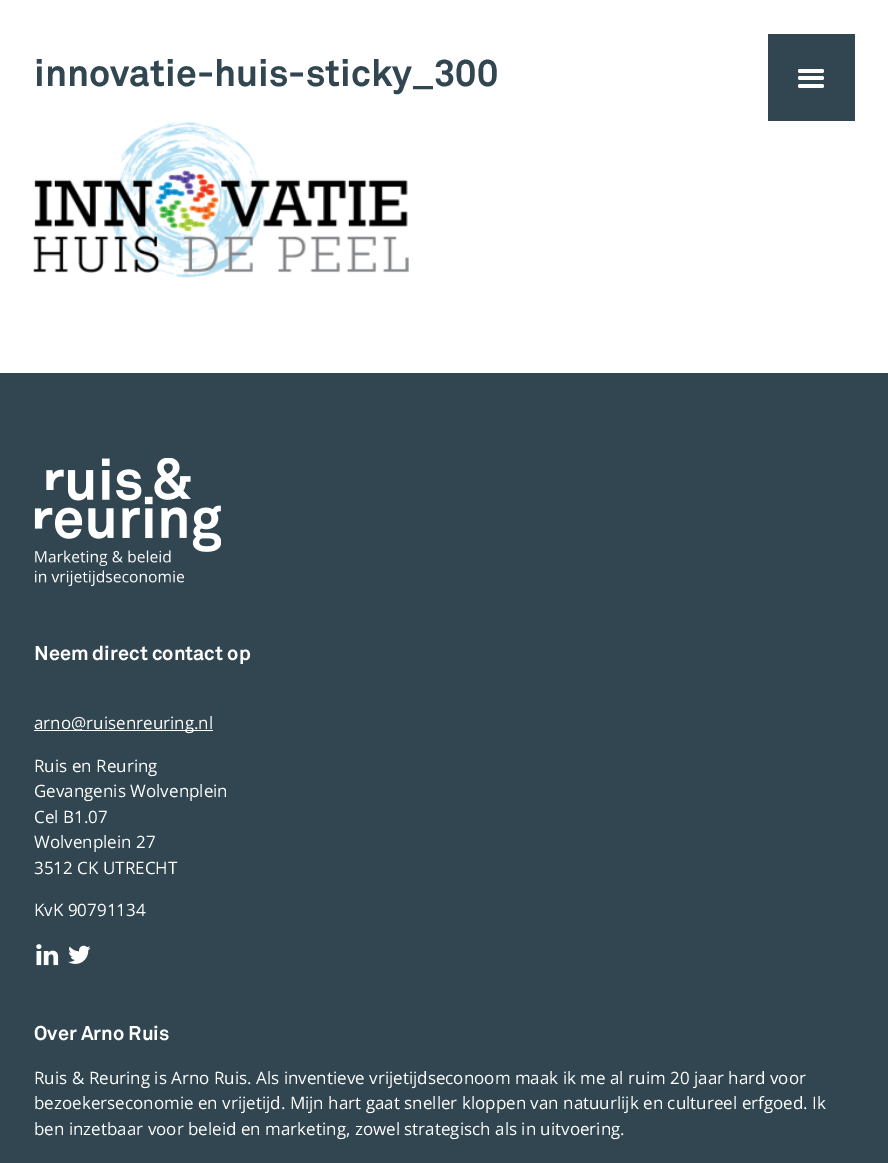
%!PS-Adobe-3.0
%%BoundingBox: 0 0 888 1163
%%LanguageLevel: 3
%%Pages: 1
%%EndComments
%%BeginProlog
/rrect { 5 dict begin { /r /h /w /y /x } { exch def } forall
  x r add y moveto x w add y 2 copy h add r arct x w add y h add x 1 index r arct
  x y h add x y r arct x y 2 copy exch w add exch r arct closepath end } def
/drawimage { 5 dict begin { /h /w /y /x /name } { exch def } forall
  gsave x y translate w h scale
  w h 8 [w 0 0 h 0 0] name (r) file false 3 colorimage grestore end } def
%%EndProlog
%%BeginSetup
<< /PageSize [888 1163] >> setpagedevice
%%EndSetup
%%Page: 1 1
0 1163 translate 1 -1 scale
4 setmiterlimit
1 setgray
0 0 888 1163 rectfill
(images/1.raw) 33 122 376 156 drawimage
0.192 0.275 0.318 setrgbcolor
768 34 87 87 rectfill
1 setgray
798 69 26 4 2 rrect fill
798 76 26 4 2 rrect fill
798 84 26 4 2 rrect fill
0.192 0.275 0.318 setrgbcolor
0 373 888 790 rectfill
(images/2.raw) 34 458 187 128 drawimage
1 setgray
34 730 179 1 rectfill
(images/3.raw) 36 944 23 22 drawimage
(images/4.raw) 68 945 23 19 drawimage
/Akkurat-Bold [37.4 0 0 -37.4 0 0] selectfont
0.192 0.275 0.318 setrgbcolor
34 86 moveto (innovatie-huis-sticky_300) show
/Akkurat-Bold [19.9 0 0 -19.9 0 0] selectfont
1 setgray
34 660 moveto (Neem direct contact op) show
/OpenSans-Regular [17 0 0 -17 0 0] selectfont
34 729 moveto (arno@ruisenreuring.nl) show
34 772 moveto (Ruis en Reuring) show
34 797 moveto (Gevangenis Wolvenplein) show
34 823 moveto (Cel B1.07) show
34 848 moveto (Wolvenplein 27) show
34 874 moveto (3512 CK UTRECHT) show
34 916 moveto (KvK 90791134) show
/Akkurat-Bold [19.9 0 0 -19.9 0 0] selectfont
34 1040 moveto (Over Arno Ruis) show
/OpenSans-Regular [17 0 0 -17 0 0] selectfont
34 1084 moveto (Ruis & Reuring is Arno Ruis. Als inventieve vrijetijdseconoom maak ik me al ruim 20 jaar hard voor) show
34 1109 moveto (bezoekerseconomie en vrijetijd. Mijn hart gaat sneller kloppen van natuurlijk en cultureel erfgoed. Ik) show
34 1135 moveto (ben inzetbaar voor beleid en marketing, zowel strategisch als in uitvoering.) show
showpage
%%EOF
